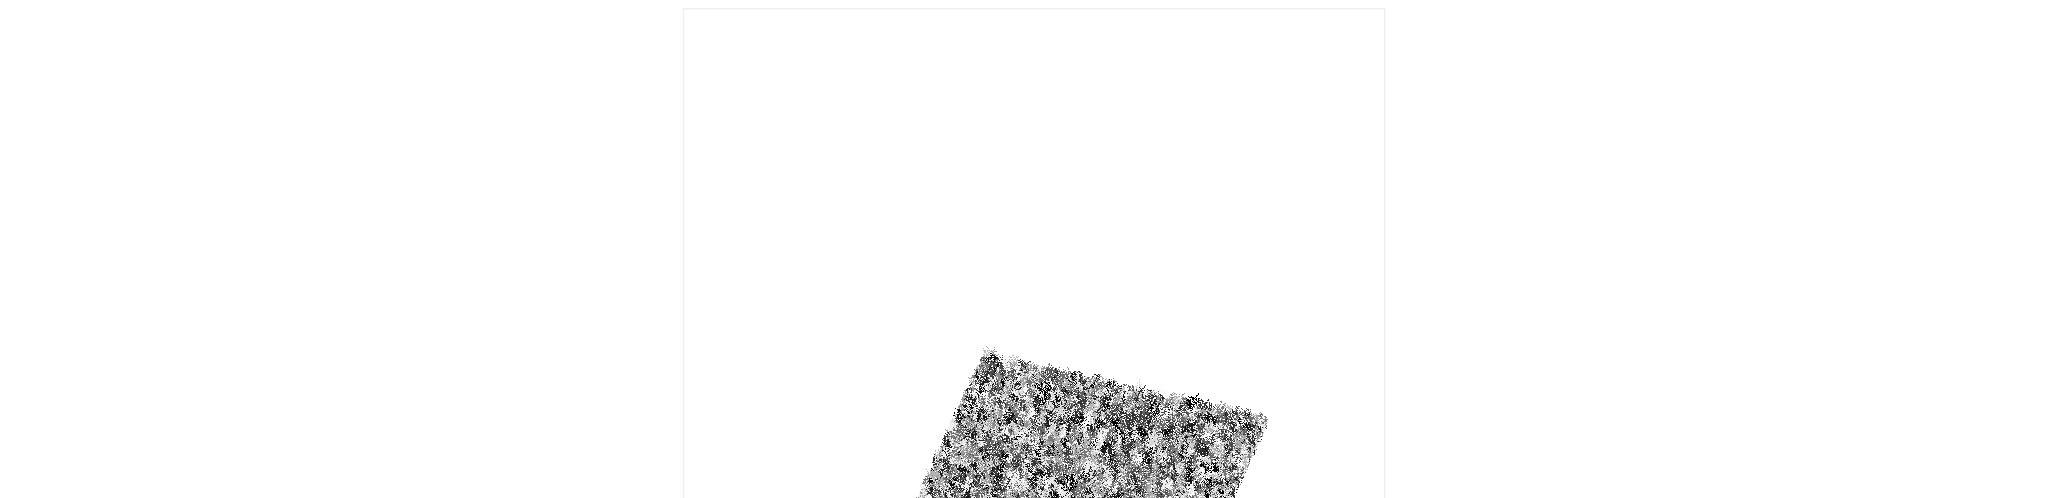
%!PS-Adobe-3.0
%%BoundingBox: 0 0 2068 498
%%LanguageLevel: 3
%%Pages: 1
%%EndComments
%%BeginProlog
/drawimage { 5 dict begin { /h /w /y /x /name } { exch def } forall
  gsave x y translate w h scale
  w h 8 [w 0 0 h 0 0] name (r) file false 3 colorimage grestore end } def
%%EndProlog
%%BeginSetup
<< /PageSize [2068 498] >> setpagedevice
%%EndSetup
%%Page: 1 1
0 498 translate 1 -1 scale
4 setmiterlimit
1 setgray
0 0 2068 498 rectfill
0.933 setgray
683.5 8.5 701 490 rectstroke
(images/1.raw) 916 346 352 152 drawimage
showpage
%%EOF
